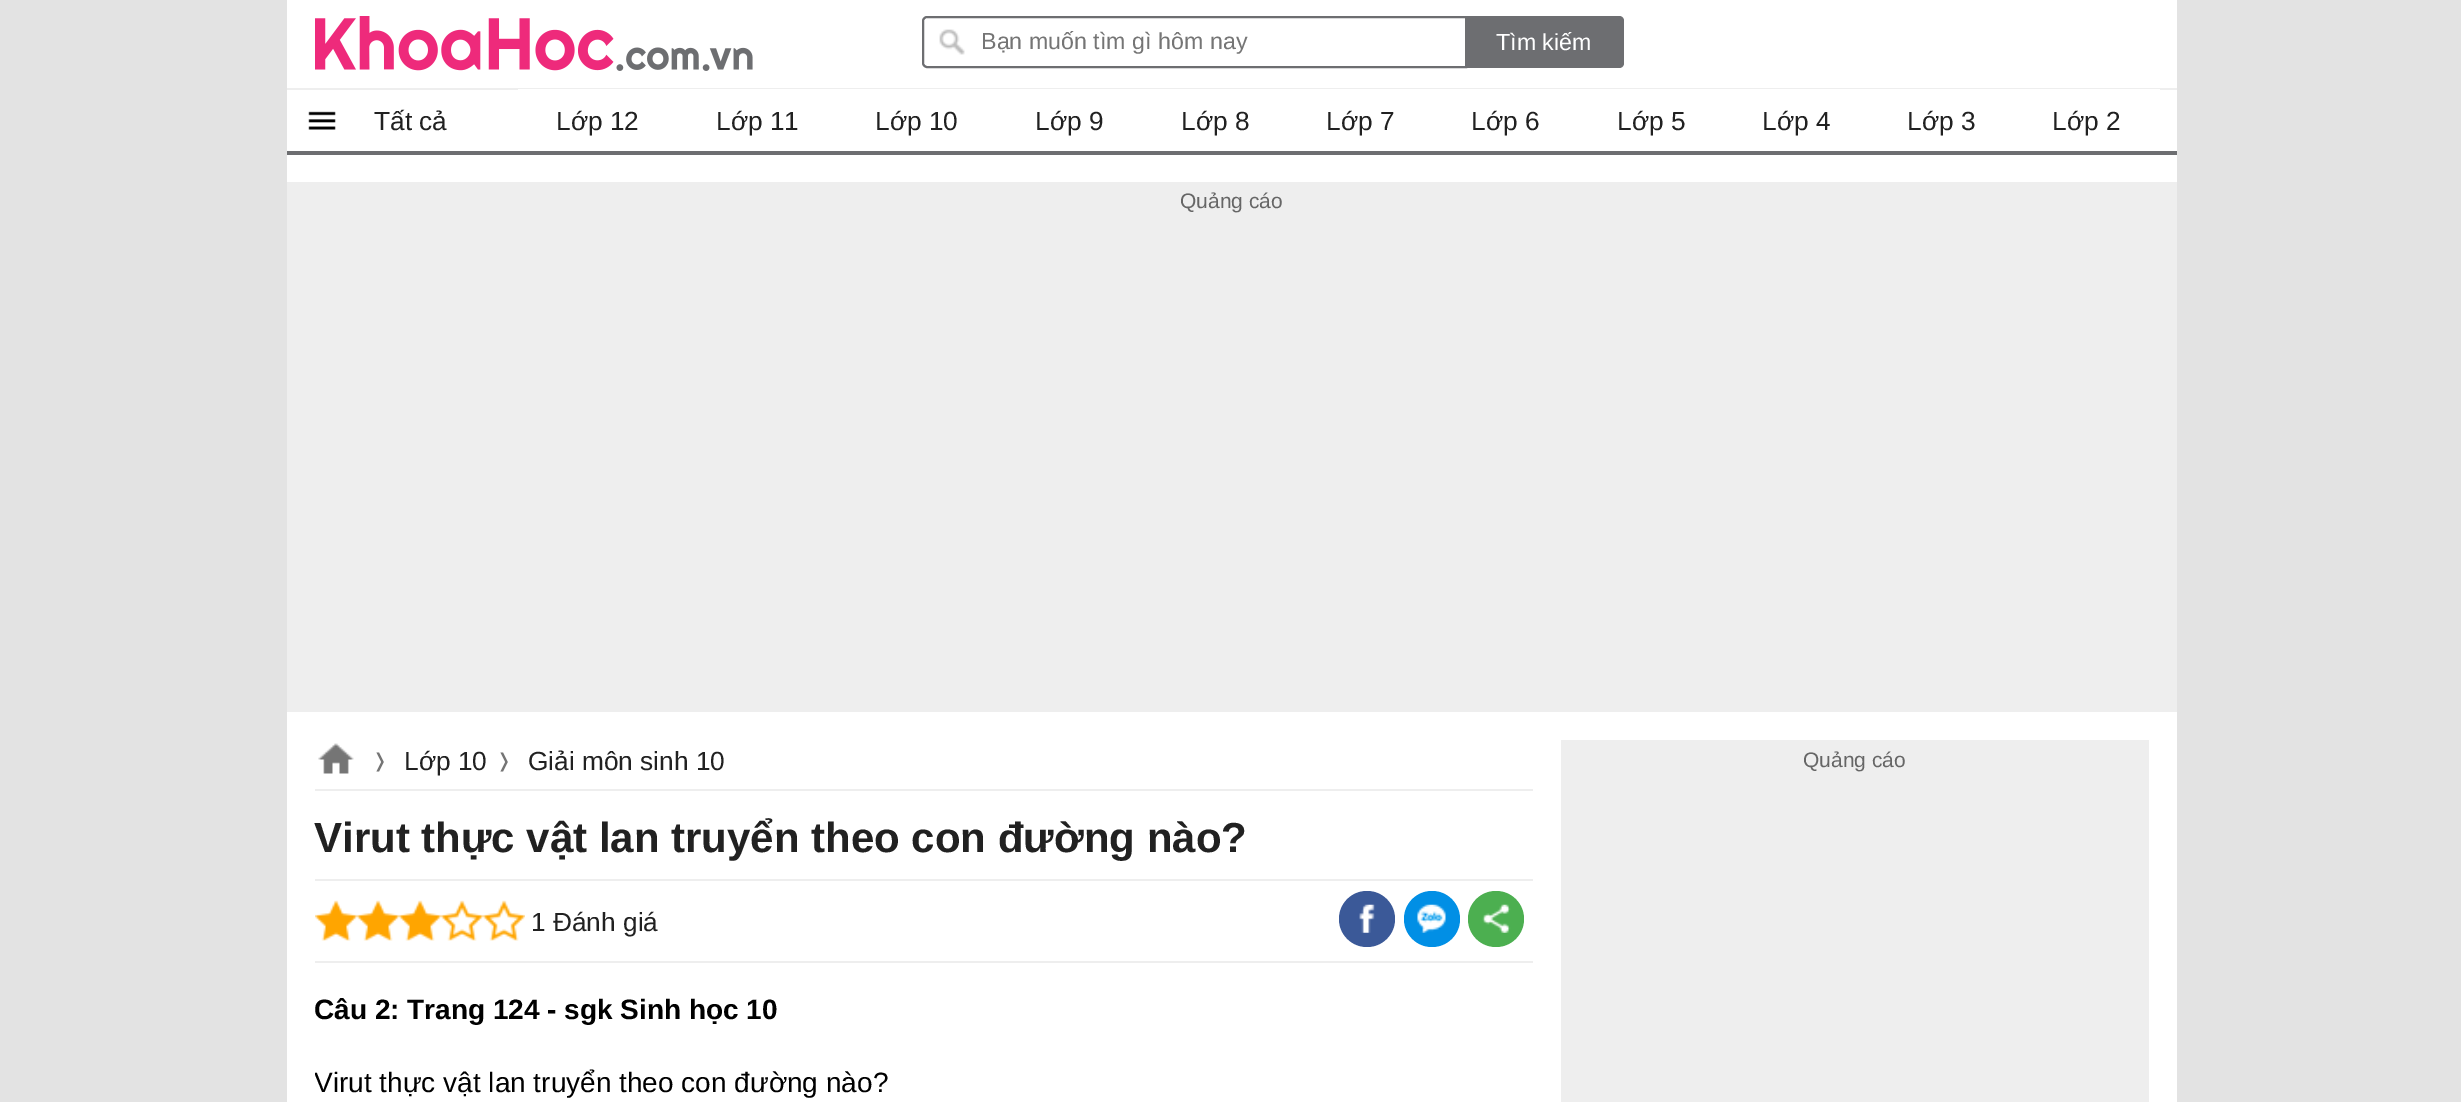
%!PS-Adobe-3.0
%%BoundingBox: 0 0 2461 1102
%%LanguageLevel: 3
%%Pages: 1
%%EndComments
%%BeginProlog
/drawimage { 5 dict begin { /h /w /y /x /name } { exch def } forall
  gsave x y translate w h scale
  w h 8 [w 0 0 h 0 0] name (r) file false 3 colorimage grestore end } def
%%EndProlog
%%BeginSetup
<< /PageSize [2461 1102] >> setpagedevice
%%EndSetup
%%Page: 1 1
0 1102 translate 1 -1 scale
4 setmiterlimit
0.89 setgray
0 0 2461 1102 rectfill
1 setgray
287 90 1890 1012 rectfill
287 0 1890 88 rectfill
(images/1.raw) 315 16 438 55 drawimage
(images/2.raw) 939 29 26 26 drawimage
0.427 0.431 0.443 setrgbcolor
2 setlinewidth
newpath 927 17 moveto 1466 17 lineto 1466 67 lineto 927 67 lineto 925 67 923 65 923 63 curveto 923 21 lineto 923 19 925 17 927 17 curveto closepath stroke
newpath 1467 16 moveto 1619 16 lineto 1622 16 1624 18 1624 21 curveto 1624 63 lineto 1624 66 1622 68 1619 68 curveto 1467 68 lineto closepath fill
287 151 1890 4 rectfill
0.933 setgray
287 88 1890 2 rectfill
(images/3.raw) 308 111 28 19 drawimage
1 setgray
518 89 1642 1 rectfill
0.933 setgray
287 182 1890 530 rectfill
315 789 1218 2 rectfill
(images/4.raw) 318 743 36 31 drawimage
315 879 1218 2 rectfill
315 961 1218 2 rectfill
(images/5.raw) 315 900 42 41 drawimage
(images/6.raw) 357 900 42 41 drawimage
(images/6.raw) 399 900 42 41 drawimage
(images/7.raw) 441 900 42 41 drawimage
(images/8.raw) 483 900 42 41 drawimage
0.231 0.349 0.596 setrgbcolor
newpath 1367 919 28 0 360 arc closepath fill
(images/9.raw) 1359 904 16 29 drawimage
0.004 0.561 0.898 setrgbcolor
newpath 1432 919 28 0 360 arc closepath fill
(images/10.raw) 1417 904 29 29 drawimage
0.298 0.686 0.314 setrgbcolor
newpath 1496 919 28 0 360 arc closepath fill
(images/11.raw) 1482 904 29 29 drawimage
0.933 setgray
1561 740 588 362 rectfill
/LiberationSans-Regular [23.25 0 0 -23.25 0 0] selectfont
0.459 setgray
981 49 moveto (Bạn muốn tìm gì hôm nay) show
1 setgray
1496 50 moveto (Tìm kiếm) show
/LiberationSans-Regular [26.25 0 0 -26.25 0 0] selectfont
0.129 setgray
374 130 moveto (Tất cả) show
556 130 moveto (Lớp 12) show
716 130 moveto (Lớp 11) show
875 130 moveto (Lớp 10) show
1035 130 moveto (Lớp 9) show
1181 130 moveto (Lớp 8) show
1326 130 moveto (Lớp 7) show
1471 130 moveto (Lớp 6) show
1617 130 moveto (Lớp 5) show
1762 130 moveto (Lớp 4) show
1907 130 moveto (Lớp 3) show
2052 130 moveto (Lớp 2) show
/LiberationSans-Regular [21 0 0 -21 0 0] selectfont
0.4 setgray
1180 208 moveto (Quảng cáo) show
/DejaVuSans-Regular [19 0 0 -19 0 0] selectfont
0.459 setgray
372 767 moveto (❭) show
/LiberationSans-Regular [26.25 0 0 -26.25 0 0] selectfont
0.129 setgray
404 770 moveto (Lớp 10) show
/DejaVuSans-Regular [19 0 0 -19 0 0] selectfont
0.459 setgray
496 767 moveto (❭) show
/LiberationSans-Regular [26.25 0 0 -26.25 0 0] selectfont
0.129 setgray
528 770 moveto (Giải môn sinh 10) show
/LiberationSans-Bold [42 0 0 -42 0 0] selectfont
314 852 moveto (Virut thực vật lan truyển theo con đường nào?) show
/LiberationSans-Regular [26.25 0 0 -26.25 0 0] selectfont
531 931 moveto (1 Đánh giá) show
/LiberationSans-Bold [28 0 0 -28 0 0] selectfont
0 setgray
314 1019 moveto (Câu 2: Trang 124 - sgk Sinh học 10) show
gsave
315 970 1218 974 rectclip
/LiberationSans-Regular [28 0 0 -28 0 0] selectfont
314 1092 moveto (Virut thực vật lan truyển theo con đường nào?) show
grestore
/LiberationSans-Regular [21 0 0 -21 0 0] selectfont
0.4 setgray
1803 767 moveto (Quảng cáo) show
showpage
%%EOF
